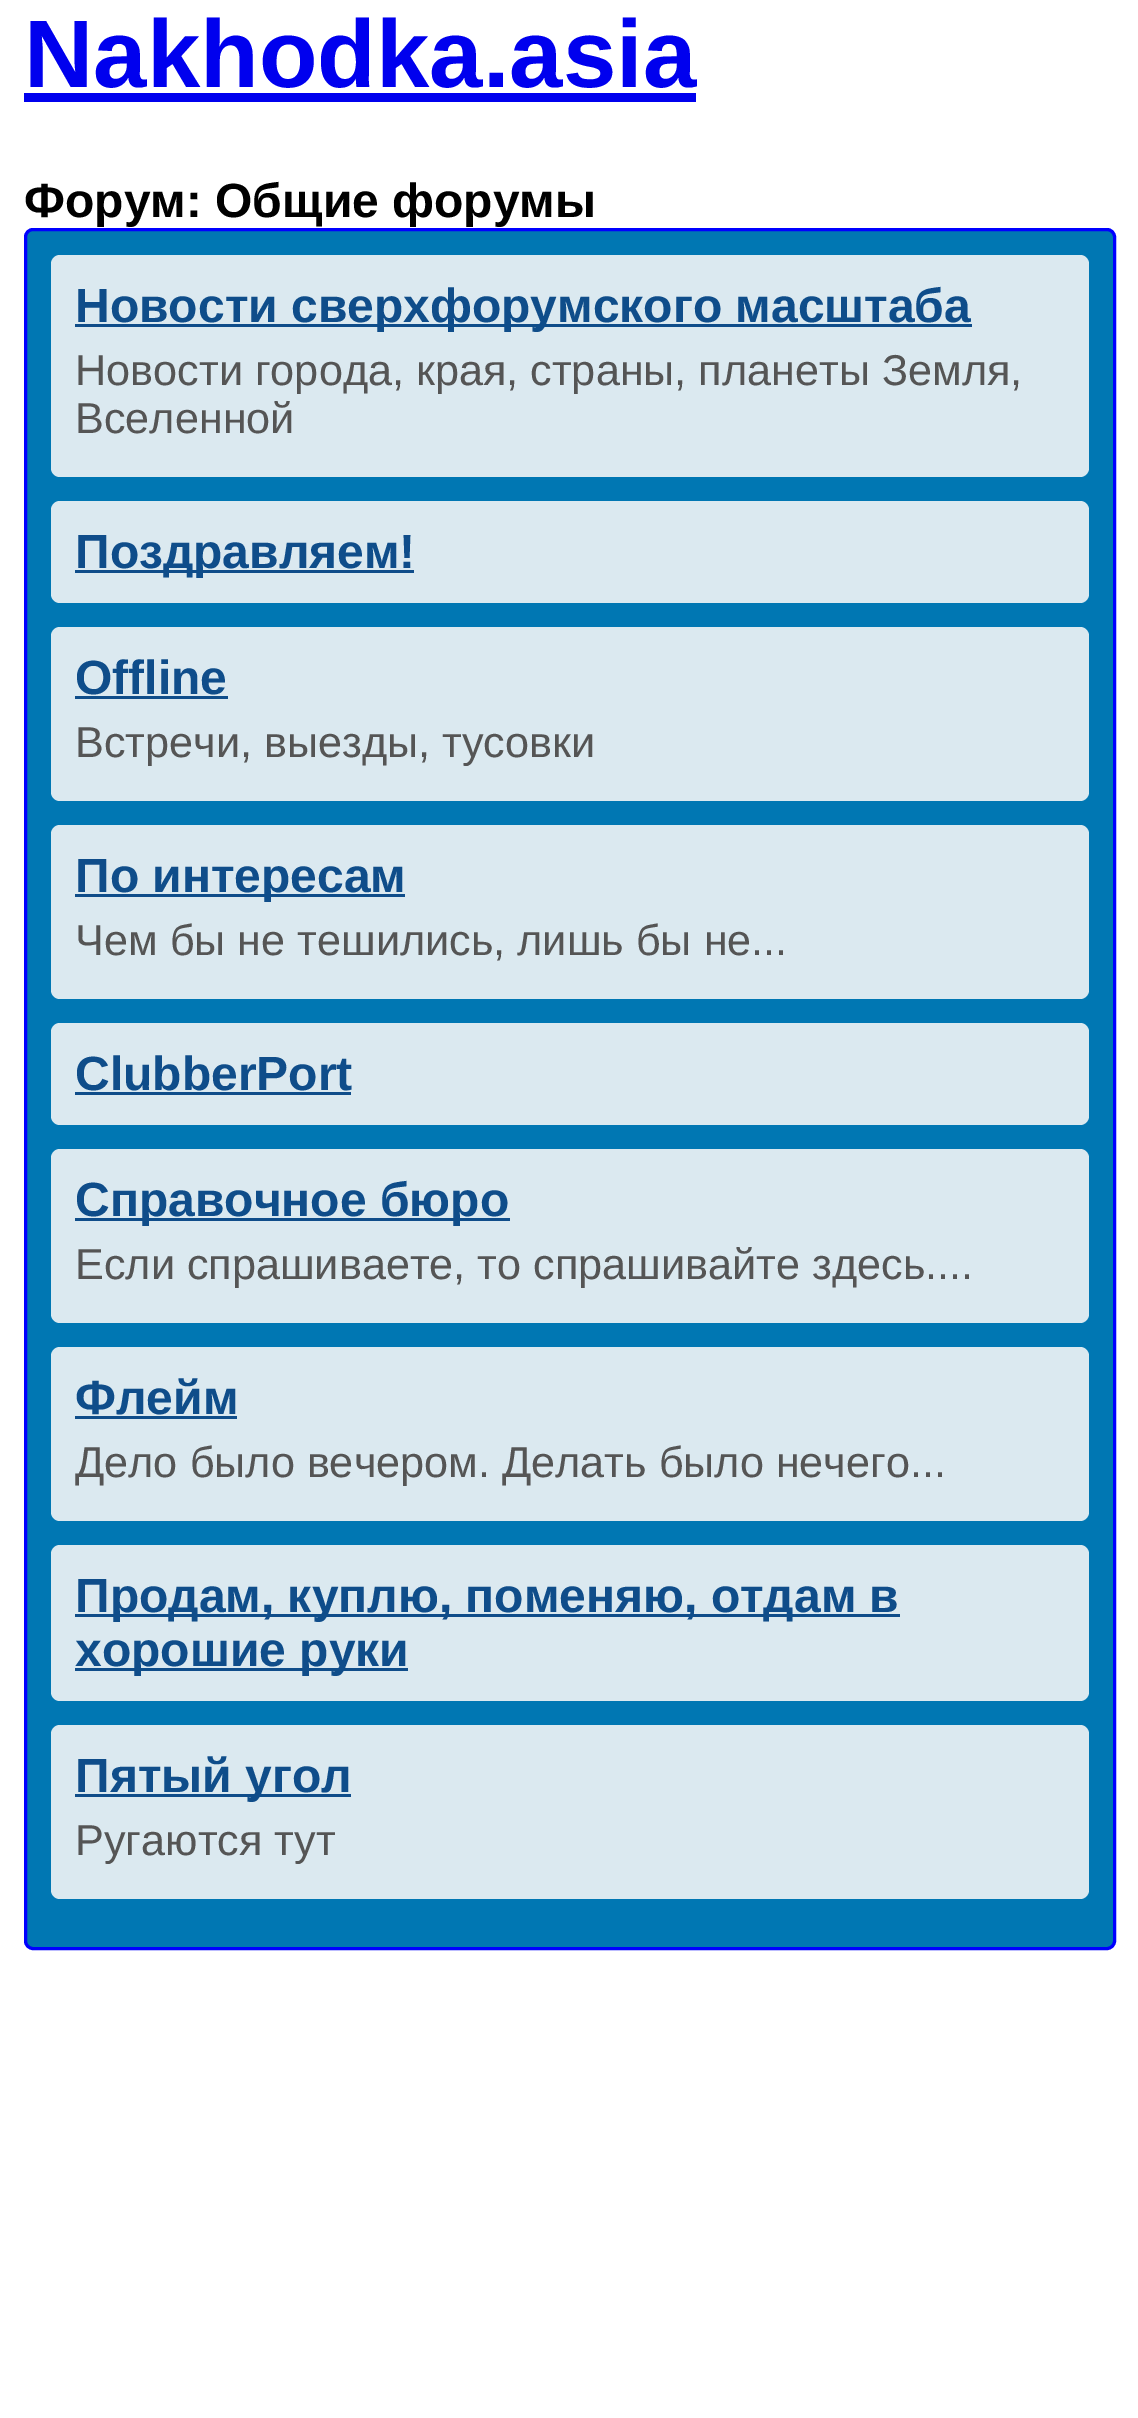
%!PS-Adobe-3.0
%%BoundingBox: 0 0 1138 2418
%%LanguageLevel: 3
%%Pages: 1
%%EndComments
%%BeginProlog
/rrect { 5 dict begin { /r /h /w /y /x } { exch def } forall
  x r add y moveto x w add y 2 copy h add r arct x w add y h add x 1 index r arct
  x y h add x y r arct x y 2 copy exch w add exch r arct closepath end } def
%%EndProlog
%%BeginSetup
<< /PageSize [1138 2418] >> setpagedevice
%%EndSetup
%%Page: 1 1
0 2418 translate 1 -1 scale
4 setmiterlimit
1 setgray
0 0 1138 2418 rectfill
0 0 0.933 setrgbcolor
24 93 672 9 rectfill
0 0.467 0.702 setrgbcolor
25.5 229.5 1089 1719 7.5 rrect gsave fill grestore
0 0 1 setrgbcolor
3 setlinewidth
stroke
0.859 0.914 0.941 setrgbcolor
51 255 1038 222 9 rrect fill
0.059 0.302 0.541 setrgbcolor
75 324 897 3 rectfill
0.859 0.914 0.941 setrgbcolor
51 501 1038 102 9 rrect fill
0.059 0.302 0.541 setrgbcolor
75 570 339 3 rectfill
0.859 0.914 0.941 setrgbcolor
51 627 1038 174 9 rrect fill
0.059 0.302 0.541 setrgbcolor
75 696 153 3 rectfill
0.859 0.914 0.941 setrgbcolor
51 825 1038 174 9 rrect fill
0.059 0.302 0.541 setrgbcolor
75 894 330 3 rectfill
0.859 0.914 0.941 setrgbcolor
51 1023 1038 102 9 rrect fill
0.059 0.302 0.541 setrgbcolor
75 1092 276 3 rectfill
0.859 0.914 0.941 setrgbcolor
51 1149 1038 174 9 rrect fill
0.059 0.302 0.541 setrgbcolor
75 1218 435 3 rectfill
0.859 0.914 0.941 setrgbcolor
51 1347 1038 174 9 rrect fill
0.059 0.302 0.541 setrgbcolor
75 1416 162 3 rectfill
0.859 0.914 0.941 setrgbcolor
51 1545 1038 156 9 rrect fill
0.059 0.302 0.541 setrgbcolor
75 1614 825 3 rectfill
75 1668 333 3 rectfill
0.859 0.914 0.941 setrgbcolor
51 1725 1038 174 9 rrect fill
0.059 0.302 0.541 setrgbcolor
75 1794 276 3 rectfill
/LiberationSans-Bold [96 0 0 -96 0 0] selectfont
0 0 0.933 setrgbcolor
24 87 moveto (Nakhodka.asia) show
/LiberationSans-Bold [48 0 0 -48 0 0] selectfont
0 setgray
24 217 moveto (Форум: Общие форумы) show
0.059 0.302 0.541 setrgbcolor
75 322 moveto (Новости сверхфорумского масштаба) show
/LiberationSans-Regular [43.2 0 0 -43.2 0 0] selectfont
0.333 setgray
75 385 moveto (Новости города, края, страны, планеты Земля,) show
75 433 moveto (Вселенной) show
/LiberationSans-Bold [48 0 0 -48 0 0] selectfont
0.059 0.302 0.541 setrgbcolor
75 568 moveto (Поздравляем!) show
75 694 moveto (Offline) show
/LiberationSans-Regular [43.2 0 0 -43.2 0 0] selectfont
0.333 setgray
75 757 moveto (Встречи, выезды, тусовки) show
/LiberationSans-Bold [48 0 0 -48 0 0] selectfont
0.059 0.302 0.541 setrgbcolor
75 892 moveto (По интересам) show
/LiberationSans-Regular [43.2 0 0 -43.2 0 0] selectfont
0.333 setgray
75 955 moveto (Чем бы не тешились, лишь бы не...) show
/LiberationSans-Bold [48 0 0 -48 0 0] selectfont
0.059 0.302 0.541 setrgbcolor
75 1090 moveto (ClubberPort) show
75 1216 moveto (Справочное бюро) show
/LiberationSans-Regular [43.2 0 0 -43.2 0 0] selectfont
0.333 setgray
75 1279 moveto (Если спрашиваете, то спрашивайте здесь....) show
/LiberationSans-Bold [48 0 0 -48 0 0] selectfont
0.059 0.302 0.541 setrgbcolor
75 1414 moveto (Флейм) show
/LiberationSans-Regular [43.2 0 0 -43.2 0 0] selectfont
0.333 setgray
75 1477 moveto (Дело было вечером. Делать было нечего...) show
/LiberationSans-Bold [48 0 0 -48 0 0] selectfont
0.059 0.302 0.541 setrgbcolor
75 1612 moveto (Продам, куплю, поменяю, отдам в) show
75 1666 moveto (хорошие руки) show
75 1792 moveto (Пятый угол) show
/LiberationSans-Regular [43.2 0 0 -43.2 0 0] selectfont
0.333 setgray
75 1855 moveto (Ругаются тут) show
showpage
%%EOF
